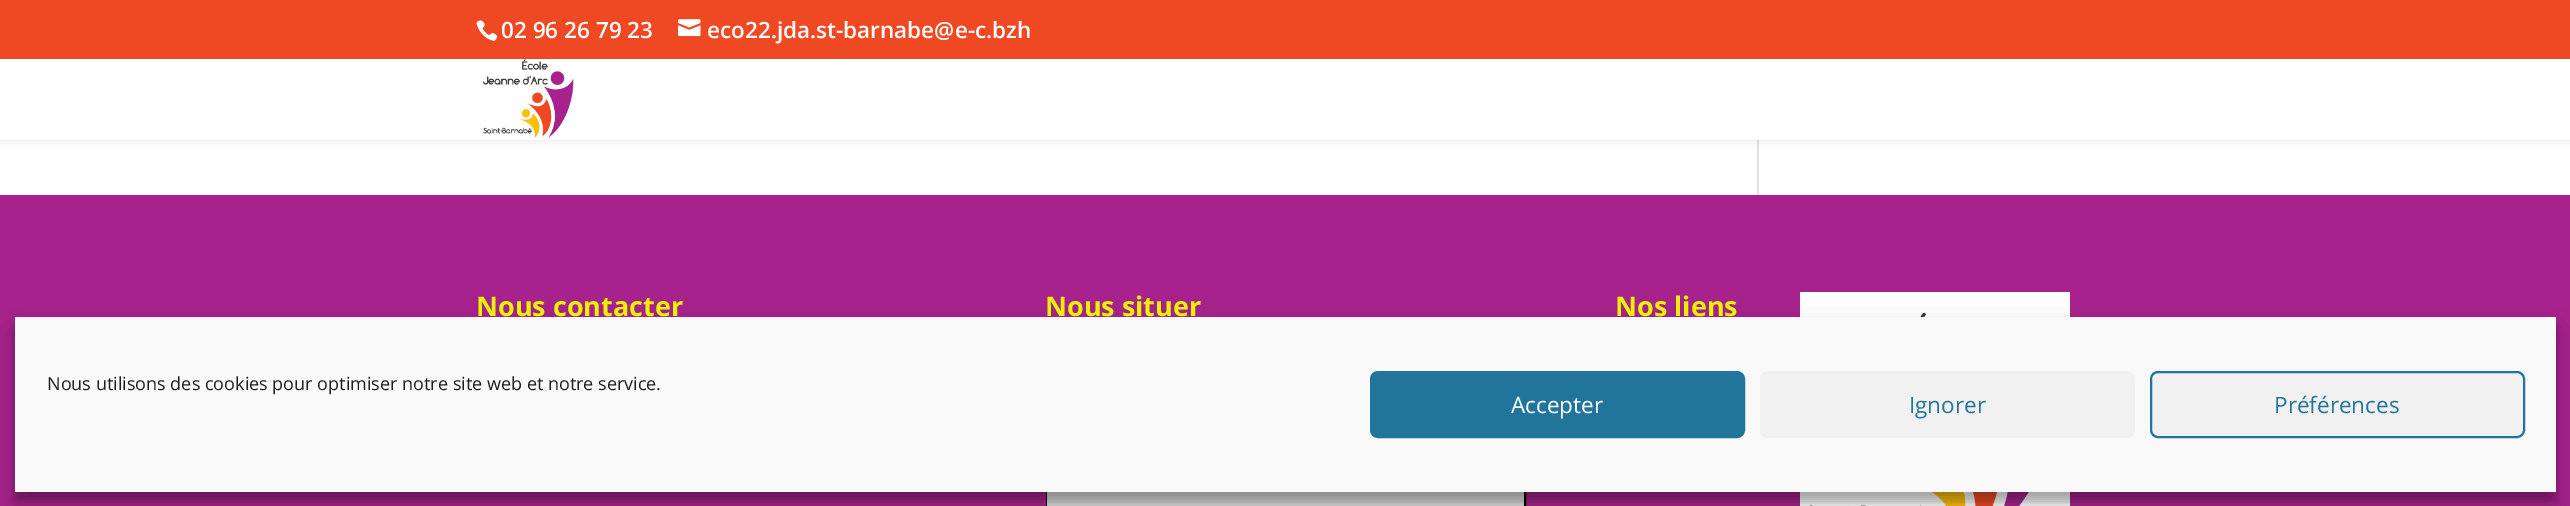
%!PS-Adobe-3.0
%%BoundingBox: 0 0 2570 506
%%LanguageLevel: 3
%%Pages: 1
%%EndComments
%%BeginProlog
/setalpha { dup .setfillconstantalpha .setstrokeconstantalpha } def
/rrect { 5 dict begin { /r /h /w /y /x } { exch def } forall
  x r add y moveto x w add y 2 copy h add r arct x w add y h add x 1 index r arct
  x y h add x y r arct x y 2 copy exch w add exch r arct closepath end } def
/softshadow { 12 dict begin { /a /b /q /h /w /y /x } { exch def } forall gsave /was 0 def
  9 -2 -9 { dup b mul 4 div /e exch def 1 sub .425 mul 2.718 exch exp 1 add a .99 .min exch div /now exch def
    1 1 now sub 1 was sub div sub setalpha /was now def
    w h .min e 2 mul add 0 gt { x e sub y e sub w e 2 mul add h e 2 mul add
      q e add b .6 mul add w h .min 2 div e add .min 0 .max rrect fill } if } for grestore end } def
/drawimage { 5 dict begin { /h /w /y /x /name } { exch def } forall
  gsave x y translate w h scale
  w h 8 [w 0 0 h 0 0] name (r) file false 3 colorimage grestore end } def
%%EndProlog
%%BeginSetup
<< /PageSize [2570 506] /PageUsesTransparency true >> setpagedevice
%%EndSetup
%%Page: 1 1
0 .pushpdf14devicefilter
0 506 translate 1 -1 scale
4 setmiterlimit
1 setgray
0 0 2570 506 rectfill
0.886 setgray
1757 140 2 55 rectfill
0 setgray
0 59 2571 81 0 5 0.1 softshadow
0.937 0.286 0.137 setrgbcolor
0 0 2570 59 rectfill
(images/1.raw) 476 20 22 21 drawimage
(images/2.raw) 678 19 23 18 drawimage
1 setgray
0 59 2570 81 rectfill
(images/3.raw) 482 59 92 79 drawimage
0.655 0.133 0.553 setrgbcolor
0 195 2570 311 rectfill
0 setgray
2 setlinewidth
1047 336 478 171 rectstroke
(images/4.raw) 1047 492 477 14 drawimage
(images/5.raw) 1800 292 270 214 drawimage
15 326 2541 175 0 4.5 0.23 softshadow
15 332 2541 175 0 15 0.19 softshadow
0.976 setgray
15 317 2541 175 rectfill
0.129 0.459 0.608 setrgbcolor
1371 372 373 65 7 rrect gsave fill grestore
stroke
0.945 setgray
1760 371 375 67 8 rrect fill
2151 372 373 65 7 rrect gsave fill grestore
0.129 0.459 0.608 setrgbcolor
stroke
/OpenSans-SemiBold [22.5 0 0 -22.5 0 0] selectfont
1 setgray
501 38 moveto (02 96 26 79 23) show
707 38 moveto (eco22.jda.st-barnabe@e-c.bzh) show
/OpenSans-Bold [27 0 0 -27 0 0] selectfont
0.929 0.941 0 setrgbcolor
476 316 moveto (Nous contacter) show
1045 316 moveto (Nous situer) show
1615 316 moveto (Nos liens) show
/OpenSans-Regular [18 0 0 -18 0 0] selectfont
0.098 0.118 0.137 setrgbcolor
47 390 moveto (Nous utilisons des cookies pour optimiser notre site web et notre service.) show
/OpenSans-Regular [22.5 0 0 -22.5 0 0] selectfont
1 setgray
1511 413 moveto (Accepter) show
0.129 0.459 0.608 setrgbcolor
1909 413 moveto (Ignorer) show
2274 413 moveto (Préférences) show
.poppdf14devicefilter showpage
%%EOF
